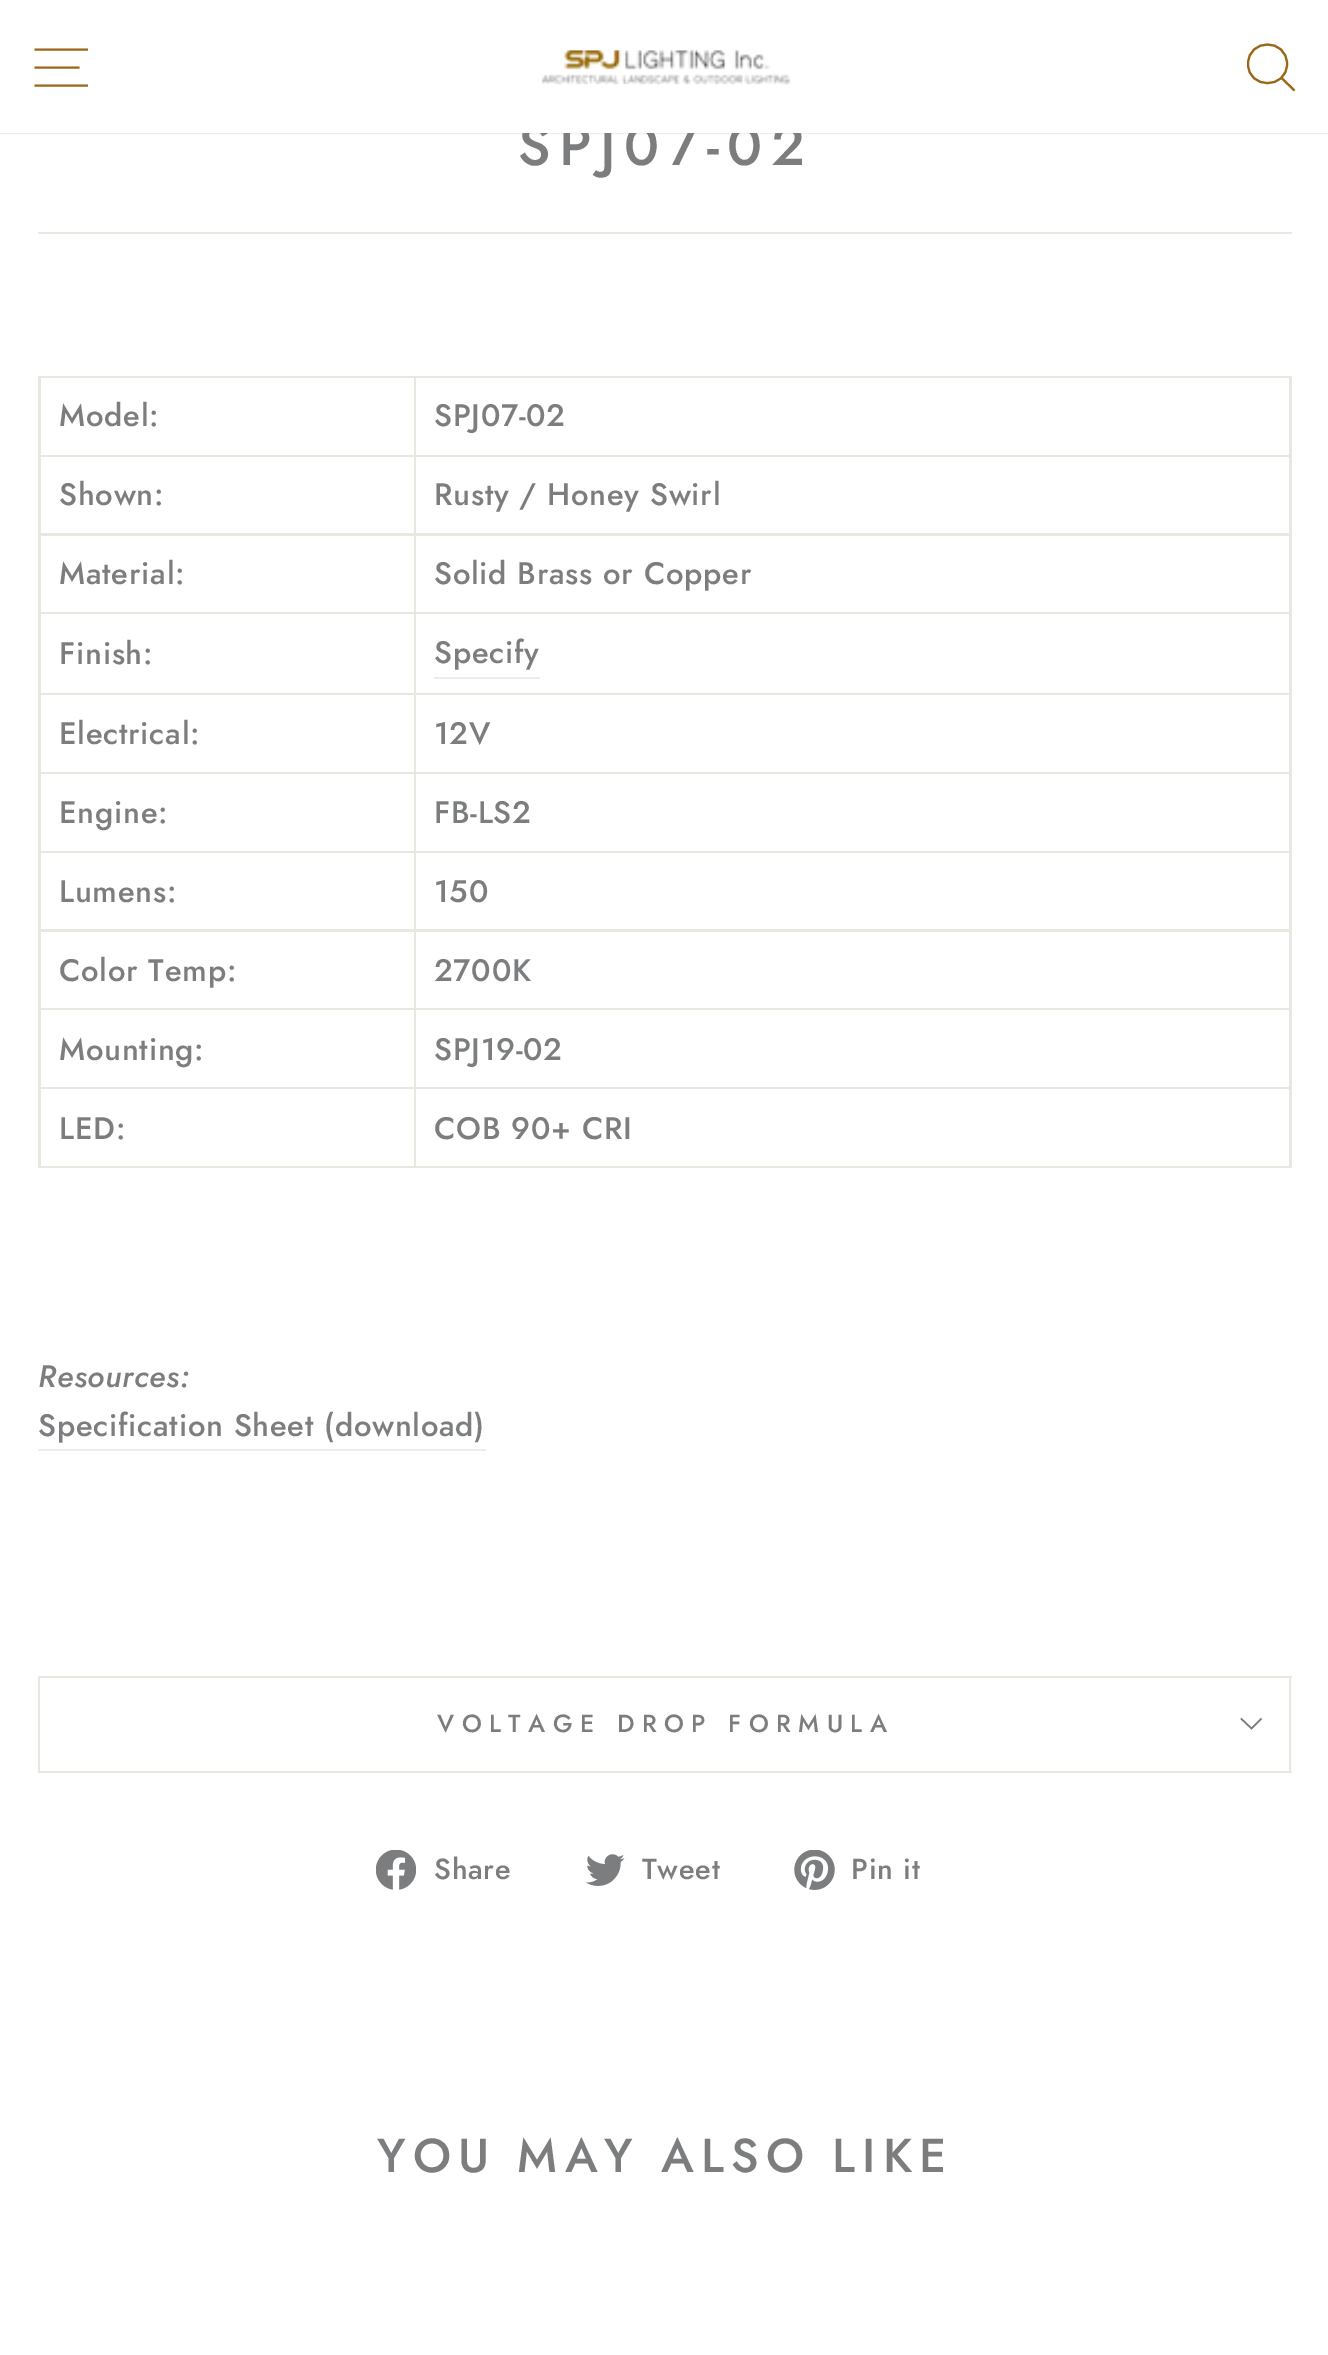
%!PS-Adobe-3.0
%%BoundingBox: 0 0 1328 2355
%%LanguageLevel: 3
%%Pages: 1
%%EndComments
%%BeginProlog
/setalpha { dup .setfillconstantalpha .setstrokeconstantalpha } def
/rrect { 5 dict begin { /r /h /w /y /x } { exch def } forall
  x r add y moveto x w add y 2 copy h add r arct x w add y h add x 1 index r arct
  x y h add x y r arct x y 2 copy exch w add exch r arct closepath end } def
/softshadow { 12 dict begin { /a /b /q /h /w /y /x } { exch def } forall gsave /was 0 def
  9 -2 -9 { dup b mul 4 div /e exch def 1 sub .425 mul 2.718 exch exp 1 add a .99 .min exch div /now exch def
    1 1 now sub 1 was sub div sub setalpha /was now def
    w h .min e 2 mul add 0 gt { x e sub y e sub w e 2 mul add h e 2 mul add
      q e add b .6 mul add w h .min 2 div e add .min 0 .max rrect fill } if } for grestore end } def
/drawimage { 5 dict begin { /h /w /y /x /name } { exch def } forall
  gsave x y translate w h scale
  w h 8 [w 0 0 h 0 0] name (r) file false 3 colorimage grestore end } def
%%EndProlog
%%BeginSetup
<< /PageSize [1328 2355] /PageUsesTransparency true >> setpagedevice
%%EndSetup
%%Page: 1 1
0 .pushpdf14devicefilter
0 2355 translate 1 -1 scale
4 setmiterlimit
1 setgray
0 0 1328 2355 rectfill
0 setgray
0 0 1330 133 0 1 0.2 softshadow
0.91 0.91 0.882 setrgbcolor
38 232 1254 2 rectfill
38 376 1254 792 rectfill
1 setgray
41 378 373 77 rectfill
416 378 873 77 rectfill
41 457 373 76 rectfill
416 457 873 76 rectfill
41 536 373 76 rectfill
416 536 873 76 rectfill
41 614 373 79 rectfill
416 614 873 79 rectfill
0.922 0.925 0.925 setrgbcolor
434 677 106 2 rectfill
1 setgray
41 695 373 77 rectfill
416 695 873 77 rectfill
41 774 373 77 rectfill
416 774 873 77 rectfill
41 853 373 76 rectfill
416 853 873 76 rectfill
41 932 373 76 rectfill
416 932 873 76 rectfill
41 1010 373 77 rectfill
416 1010 873 77 rectfill
41 1089 373 77 rectfill
416 1089 873 77 rectfill
0.922 0.925 0.925 setrgbcolor
38 1449 448 2 rectfill
0.91 0.91 0.882 setrgbcolor
38 1771 1254 2 rectfill
38 1676 1254 2 rectfill
1289 1676 2 95 rectfill
38 1676 2 95 rectfill
0.486 0.49 0.494 setrgbcolor
1.6 setlinewidth
newpath 1241 1718.5 moveto 1251.5 1728.5 lineto 1261.5 1718.5 lineto stroke
(images/2.raw) 376 1850 40 40 drawimage
(images/3.raw) 586 1854 39 32 drawimage
(images/4.raw) 794 1850 41 40 drawimage
/Jost-Medium [56 0 0 -56 0 0] selectfont
518 165 moveto 8.5 0 (SPJ07-02) ashow
1 setgray
0 0 1328 133 rectfill
(images/1.raw) 542 50 248 35 drawimage
0.604 0.4 0.09 setrgbcolor
2.1 setlinewidth
newpath 1287 64 moveto 1287 89.5 1248 89.5 1248 64 curveto 1248 38 1287 38 1287 64 curveto closepath 1294.5 90.5 moveto 1281.5 78 lineto stroke
newpath 34.5 49.5 moveto 88 49.5 lineto 34.5 67.5 moveto 79.5 67.5 lineto 34.5 85.5 moveto 88 85.5 lineto stroke
/Jost-Medium [31 0 0 -31 0 0] selectfont
0.486 0.49 0.494 setrgbcolor
59 426 moveto 0.75 0 (Model:) ashow
434 426 moveto 0.75 0 (SPJ07-02) ashow
59 505 moveto 0.75 0 (Shown:) ashow
434 505 moveto 0.75 0 (Rusty / Honey Swirl) ashow
59 584 moveto 0.75 0 (Material:) ashow
434 584 moveto 0.75 0 (Solid Brass or Copper) ashow
59 664 moveto 0.75 0 (Finish:) ashow
434 663 moveto 0.75 0 (Specify) ashow
59 744 moveto 0.75 0 (Electrical:) ashow
434 744 moveto 0.75 0 (12V) ashow
59 823 moveto 0.75 0 (Engine:) ashow
434 823 moveto 0.75 0 (FB-LS2) ashow
59 902 moveto 0.75 0 (Lumens:) ashow
434 902 moveto 0.75 0 (150) ashow
59 981 moveto 0.75 0 (Color Temp:) ashow
434 981 moveto 0.75 0 (2700K) ashow
59 1060 moveto 0.75 0 (Mounting:) ashow
434 1060 moveto 0.75 0 (SPJ19-02) ashow
59 1139 moveto 0.75 0 (LED:) ashow
434 1139 moveto 0.75 0 (COB 90+ CRI) ashow
/Jost-MediumItalic [31 0 0 -31 0 0] selectfont
38 1387 moveto 0.75 0 (Resources:) ashow
/Jost-Medium [31 0 0 -31 0 0] selectfont
38 1436 moveto 0.75 0 (Specification Sheet \(download\)) ashow
/Jost-Medium [24.8 0 0 -24.8 0 0] selectfont
437 1732 moveto 7.5 0 (VOLTAGE DROP FORMULA) ashow
/Jost-Medium [29 0 0 -29 0 0] selectfont
434 1879 moveto 0.75 0 (Share) ashow
642 1879 moveto 0.75 0 (Tweet) ashow
851 1879 moveto 0.75 0 (Pin it) ashow
/Jost-Medium [47.5 0 0 -47.5 0 0] selectfont
377 2172 moveto 7.1 0 (YOU MAY ALSO LIKE) ashow
.poppdf14devicefilter showpage
%%EOF
